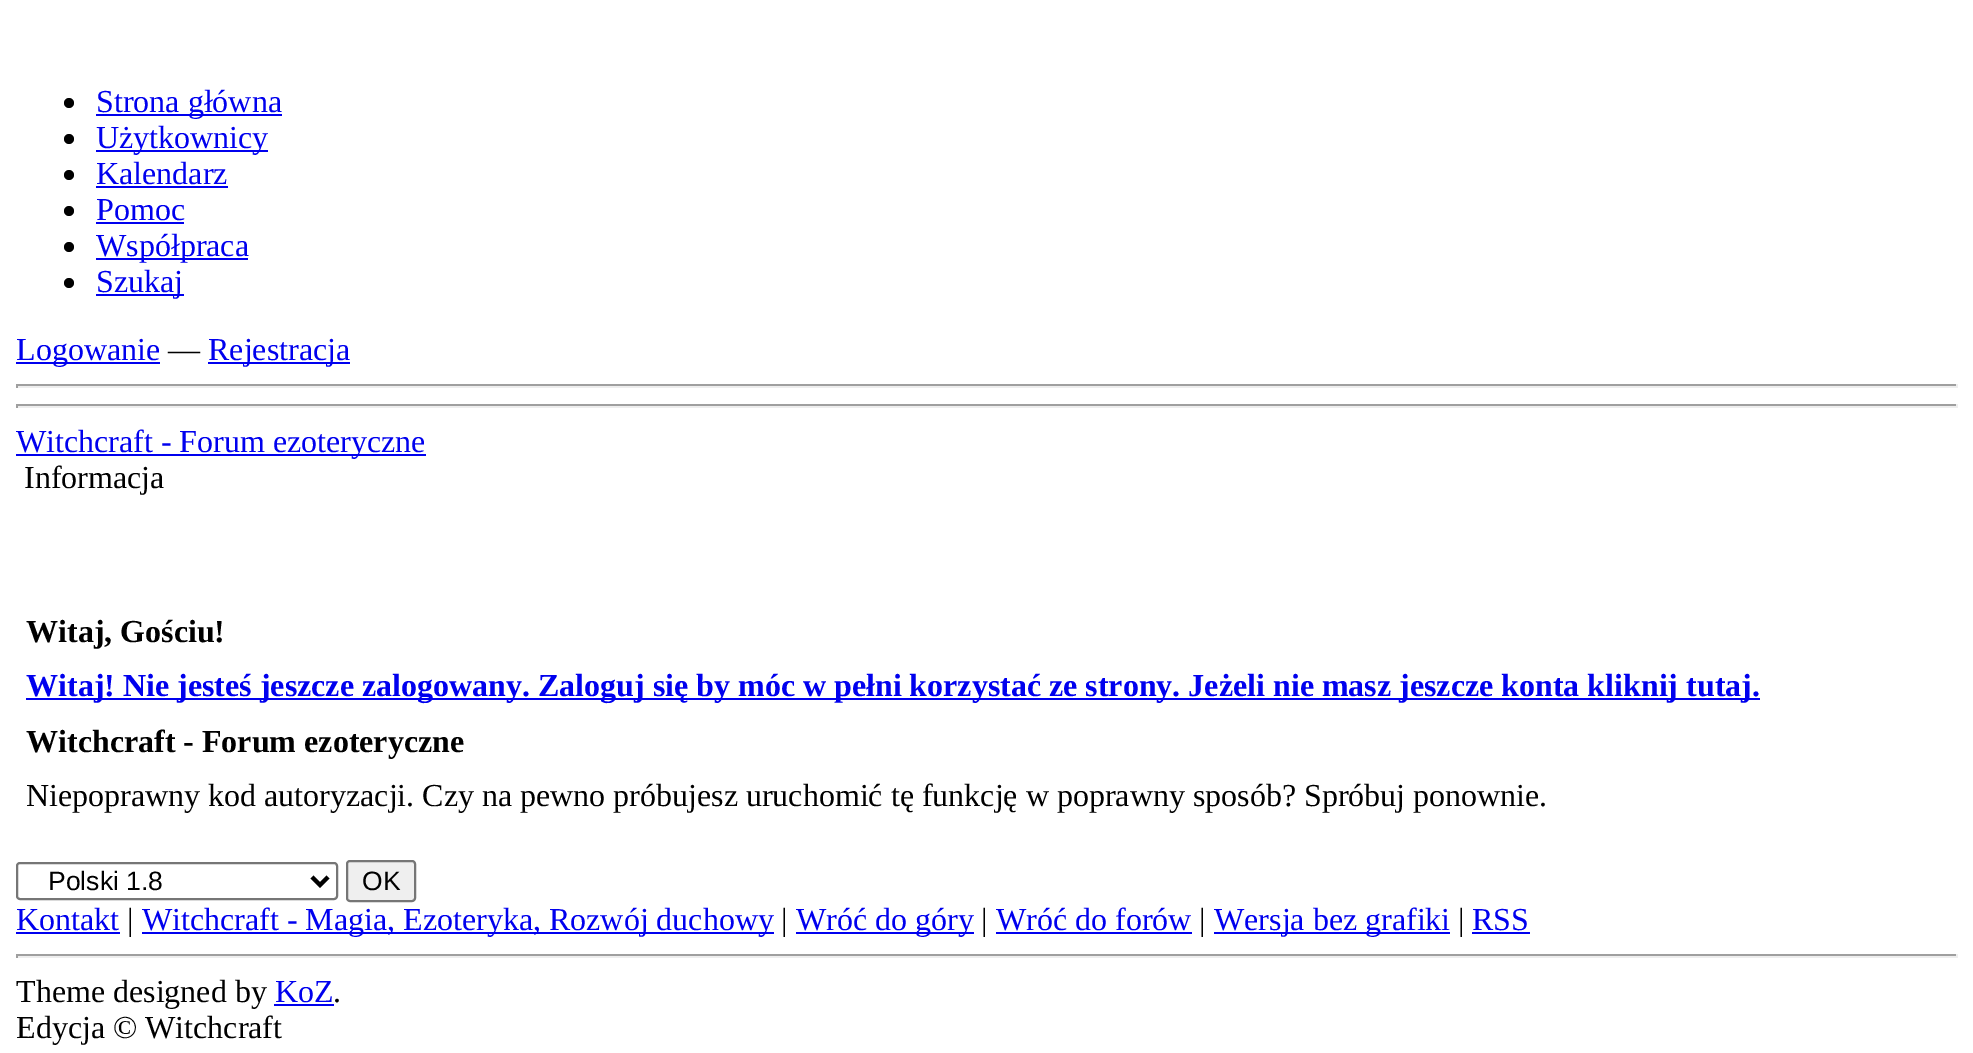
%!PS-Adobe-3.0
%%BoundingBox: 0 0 1973 1053
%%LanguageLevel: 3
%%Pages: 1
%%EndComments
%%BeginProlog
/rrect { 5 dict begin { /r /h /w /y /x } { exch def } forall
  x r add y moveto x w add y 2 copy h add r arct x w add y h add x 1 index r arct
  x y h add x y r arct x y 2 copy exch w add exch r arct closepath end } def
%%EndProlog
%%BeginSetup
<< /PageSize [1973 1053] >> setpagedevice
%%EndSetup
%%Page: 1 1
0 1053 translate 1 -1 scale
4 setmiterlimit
1 setgray
0 0 1973 1053 rectfill
0 setgray
newpath 69 103 5 0 360 arc closepath fill
0 0 0.933 setrgbcolor
96 114 186 2 rectfill
0 setgray
newpath 69 139 5 0 360 arc closepath fill
0 0 0.933 setrgbcolor
96 150 172 2 rectfill
0 setgray
newpath 69 175 5 0 360 arc closepath fill
0 0 0.933 setrgbcolor
96 186 132 2 rectfill
0 setgray
newpath 69 211 5 0 360 arc closepath fill
0 0 0.933 setrgbcolor
96 222 88 2 rectfill
0 setgray
newpath 69 247 5 0 360 arc closepath fill
0 0 0.933 setrgbcolor
96 258 152 2 rectfill
0 setgray
newpath 69 283 5 0 360 arc closepath fill
0 0 0.933 setrgbcolor
96 294 88 2 rectfill
16 362 144 2 rectfill
208 362 142 2 rectfill
0.624 setgray
16 384 1942 2 rectfill
0.933 setgray
1956 384 2 4 rectfill
16 386 1942 2 rectfill
0.624 setgray
16 384 2 4 rectfill
16 404 1942 2 rectfill
0.933 setgray
1956 404 2 4 rectfill
16 406 1942 2 rectfill
0.624 setgray
16 404 2 4 rectfill
0 0 0.933 setrgbcolor
16 454 410 2 rectfill
26 698 1734 2 rectfill
0.463 setgray
2 setlinewidth
17 863 320 36 3 rrect stroke
0 setgray
4 setlinewidth
newpath 312 877 moveto 320 885 lineto 328 877 lineto stroke
0.937 setgray
347 861 68 40 3 rrect gsave fill grestore
0.463 setgray
2 setlinewidth
stroke
0 0 0.933 setrgbcolor
16 932 104 2 rectfill
142 932 632 2 rectfill
796 932 178 2 rectfill
996 932 196 2 rectfill
1214 932 236 2 rectfill
1472 932 58 2 rectfill
0.624 setgray
16 954 1942 2 rectfill
0.933 setgray
1956 954 2 4 rectfill
16 956 1942 2 rectfill
0.624 setgray
16 954 2 4 rectfill
0 0 0.933 setrgbcolor
274 1004 60 2 rectfill
/LiberationSerif-Regular [32 0 0 -32 0 0] selectfont
96 112 moveto (Strona główna) show
96 148 moveto (Użytkownicy) show
96 184 moveto (Kalendarz) show
96 220 moveto (Pomoc) show
96 256 moveto (Współpraca) show
96 292 moveto (Szukaj) show
16 360 moveto (Logowanie) show
0 setgray
168 360 moveto (—) show
0 0 0.933 setrgbcolor
208 360 moveto (Rejestracja) show
16 452 moveto (Witchcraft - Forum ezoteryczne) show
0 setgray
24 488 moveto (Informacja) show
/LiberationSerif-Bold [32 0 0 -32 0 0] selectfont
26 642 moveto (Witaj, Gościu!) show
0 0 0.933 setrgbcolor
26 696 moveto (Witaj! Nie jesteś jeszcze zalogowany. Zaloguj się by móc w pełni korzystać ze strony. Jeżeli nie masz jeszcze konta kliknij tutaj.) show
0 setgray
26 752 moveto (Witchcraft - Forum ezoteryczne) show
/LiberationSerif-Regular [32 0 0 -32 0 0] selectfont
26 806 moveto (Niepoprawny kod autoryzacji. Czy na pewno próbujesz uruchomić tę funkcję w poprawny sposób? Spróbuj ponownie.) show
/LiberationSans-Regular [26.5 0 0 -26.5 0 0] selectfont
48 890 moveto (Polski 1.8) show
362 890 moveto (OK) show
/LiberationSerif-Regular [32 0 0 -32 0 0] selectfont
0 0 0.933 setrgbcolor
16 930 moveto (Kontakt) show
0 setgray
127 930 moveto (|) show
0 0 0.933 setrgbcolor
142 930 moveto (Witchcraft - Magia, Ezoteryka, Rozwój duchowy) show
0 setgray
781 930 moveto (|) show
0 0 0.933 setrgbcolor
796 930 moveto (Wróć do góry) show
0 setgray
981 930 moveto (|) show
0 0 0.933 setrgbcolor
996 930 moveto (Wróć do forów) show
0 setgray
1199 930 moveto (|) show
0 0 0.933 setrgbcolor
1214 930 moveto (Wersja bez grafiki) show
0 setgray
1458 930 moveto (|) show
0 0 0.933 setrgbcolor
1472 930 moveto (RSS) show
0 setgray
16 1002 moveto (Theme designed by) show
0 0 0.933 setrgbcolor
275 1002 moveto (KoZ) show
0 setgray
333 1002 moveto (.) show
16 1038 moveto (Edycja © Witchcraft) show
showpage
%%EOF
